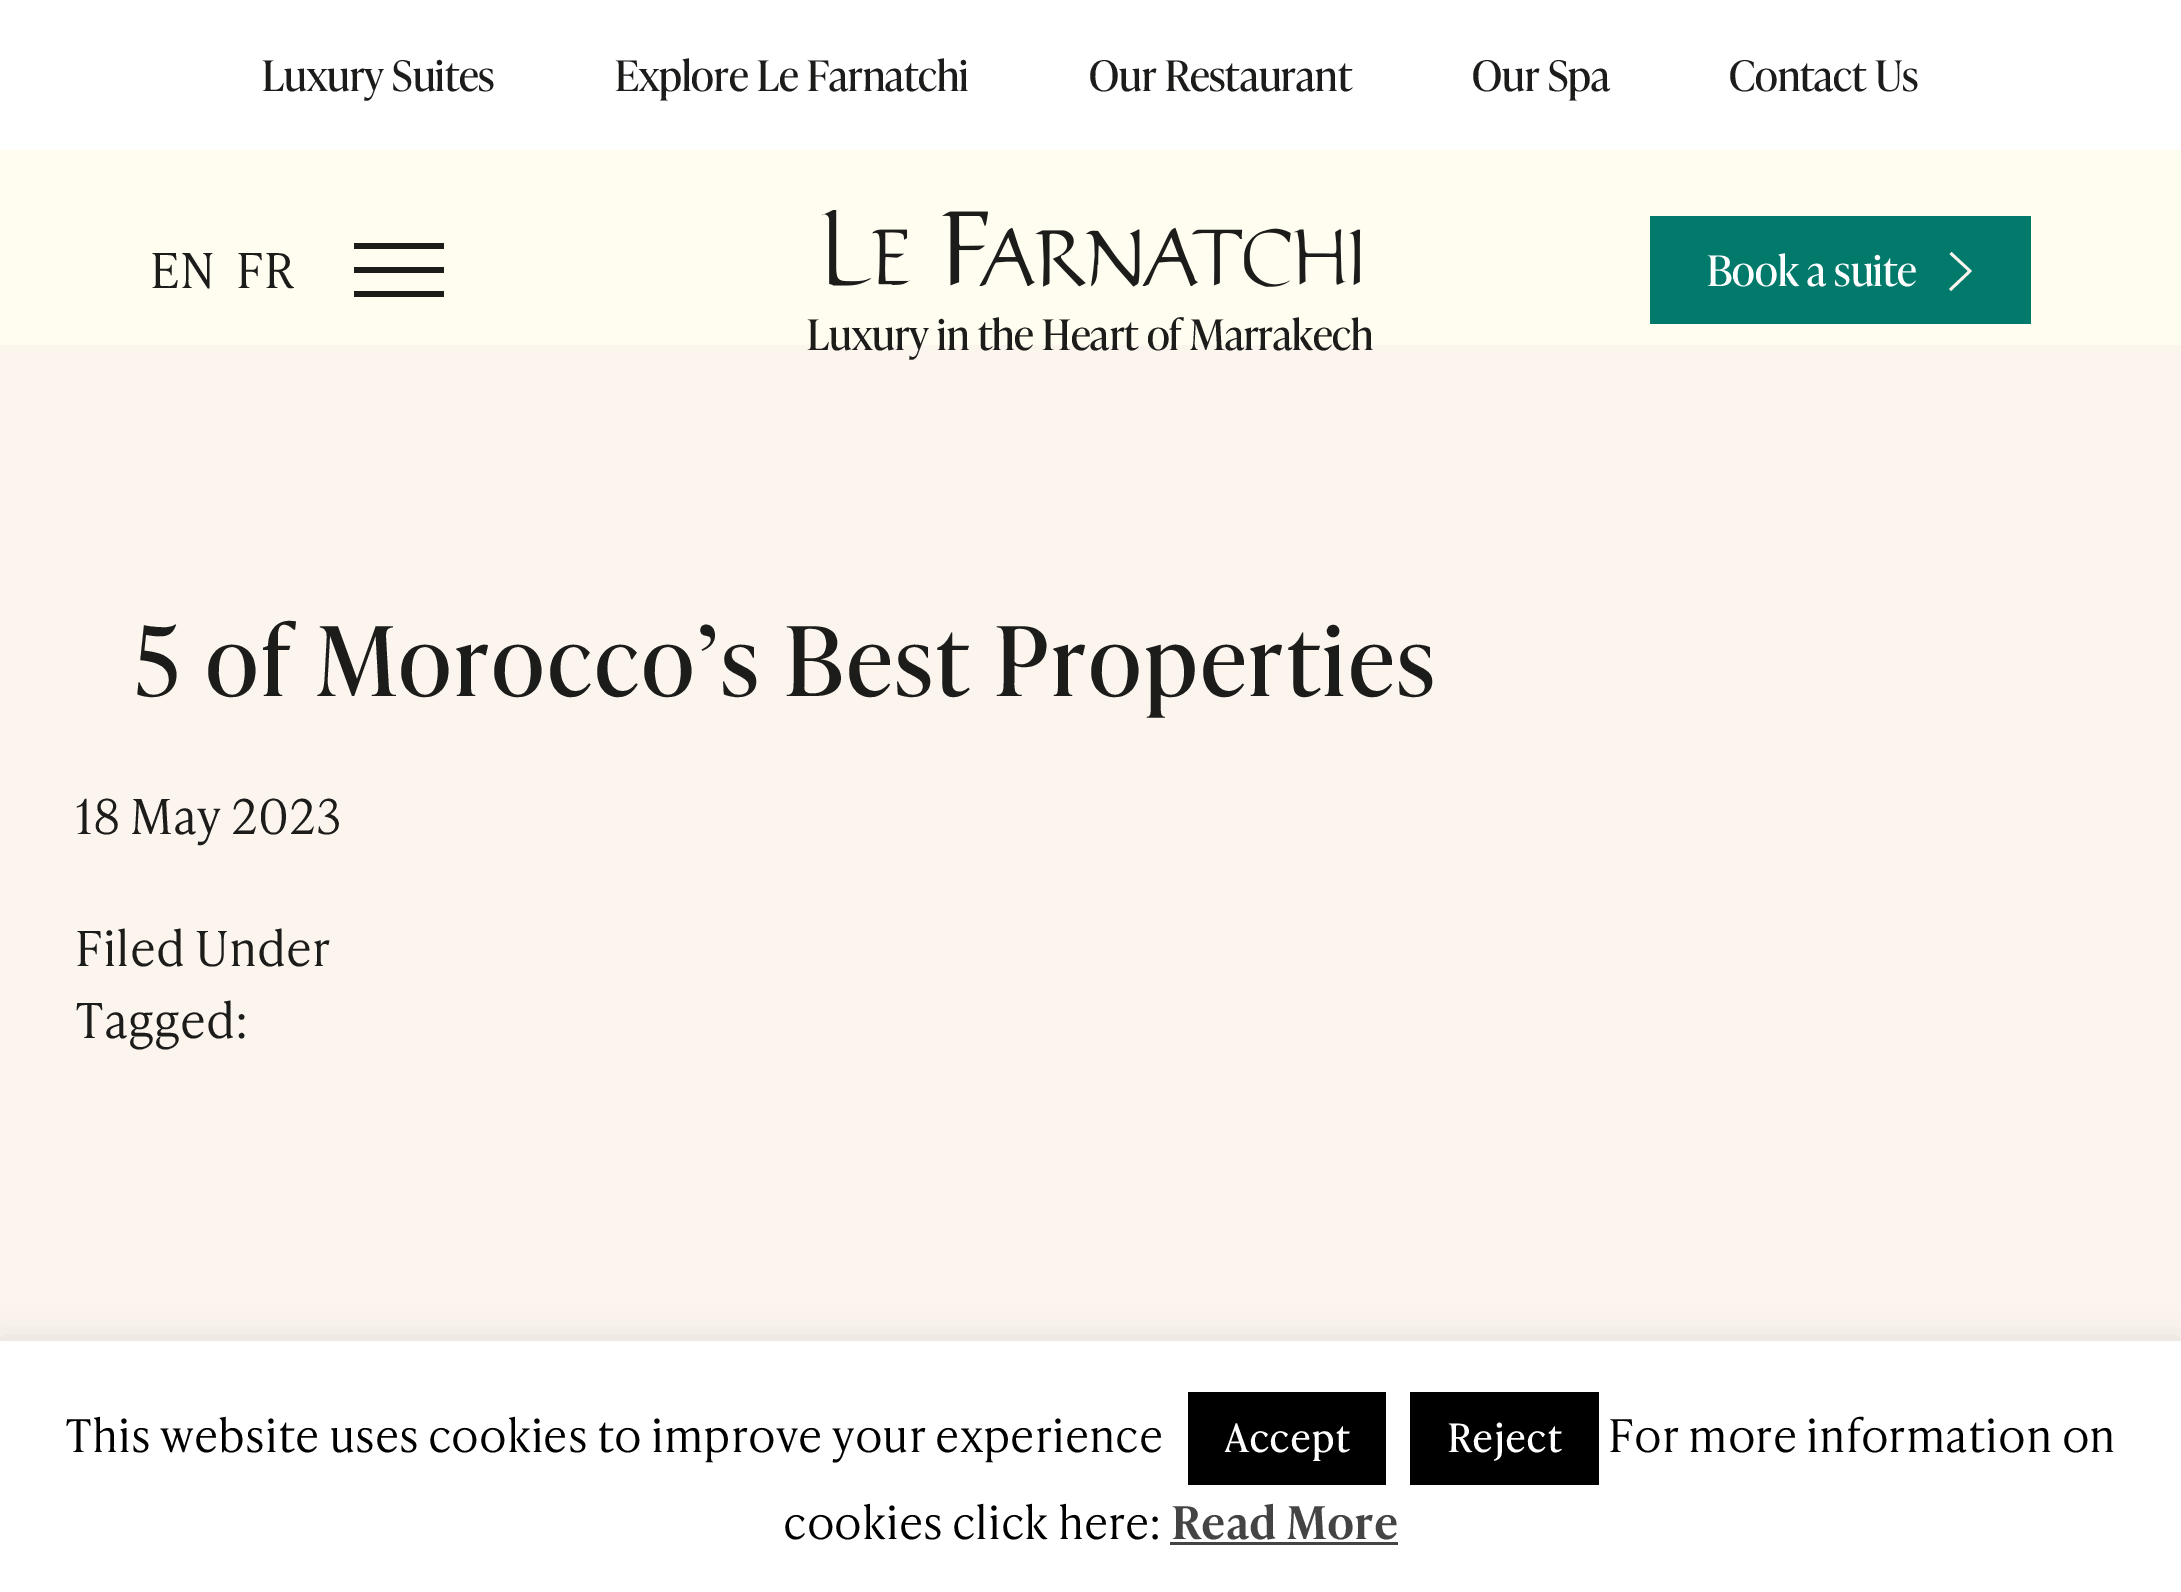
%!PS-Adobe-3.0
%%BoundingBox: 0 0 2181 1592
%%LanguageLevel: 3
%%Pages: 1
%%EndComments
%%BeginProlog
/setalpha { dup .setfillconstantalpha .setstrokeconstantalpha } def
/rrect { 5 dict begin { /r /h /w /y /x } { exch def } forall
  x r add y moveto x w add y 2 copy h add r arct x w add y h add x 1 index r arct
  x y h add x y r arct x y 2 copy exch w add exch r arct closepath end } def
/softshadow { 12 dict begin { /a /b /q /h /w /y /x } { exch def } forall gsave /was 0 def
  9 -2 -9 { dup b mul 4 div /e exch def 1 sub .425 mul 2.718 exch exp 1 add a .99 .min exch div /now exch def
    1 1 now sub 1 was sub div sub setalpha /was now def
    w h .min e 2 mul add 0 gt { x e sub y e sub w e 2 mul add h e 2 mul add
      q e add b .6 mul add w h .min 2 div e add .min 0 .max rrect fill } if } for grestore end } def
/drawimage { 5 dict begin { /h /w /y /x /name } { exch def } forall
  gsave x y translate w h scale
  w h 8 [w 0 0 h 0 0] name (r) file false 3 colorimage grestore end } def
%%EndProlog
%%BeginSetup
<< /PageSize [2181 1592] /PageUsesTransparency true >> setpagedevice
%%EndSetup
%%Page: 1 1
0 .pushpdf14devicefilter
0 1592 translate 1 -1 scale
4 setmiterlimit
1 0.988 0.941 setrgbcolor
0 0 2181 1592 rectfill
1 setgray
0 0 2181 150 rectfill
0.11 0.11 0.106 setrgbcolor
354 243 90 6 rectfill
354 267 90 6 rectfill
354 291 90 6 rectfill
0.004 0.475 0.42 setrgbcolor
1650 216 381 108 rectfill
0.984 0.961 0.933 setrgbcolor
newpath 1972 271 moveto 1951 291 lineto 1949 289 lineto 1968 271 lineto 1949.5 254 lineto 1951.5 252 lineto closepath fill
(images/1.raw) 822 210 539 77 drawimage
0 345 2181 996 rectfill
0.675 0.671 0.671 setrgbcolor
0 1338 2181 252 0 15 0.3 softshadow
1 setgray
0 1341 2181 251 rectfill
0 setgray
1188 1392 198 93 rectfill
1410 1392 189 93 rectfill
0.267 setgray
1170 1542 228 3 rectfill
/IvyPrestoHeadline-Regular [42 0 0 -42 0 0] selectfont
0.11 0.11 0.106 setrgbcolor
262 91 moveto (Luxury Suites) show
615 91 moveto (Explore Le Farnatchi) show
1089 91 moveto (Our Restaurant) show
1472 91 moveto (Our Spa) show
1729 91 moveto (Contact Us) show
/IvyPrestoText-Light [48 0 0 -48 0 0] selectfont
150 288 moveto (EN) show
236 288 moveto (FR) show
/IvyPrestoHeadline-Regular [42 0 0 -42 0 0] selectfont
1 setgray
1707 286 moveto (Book a suite) show
0.11 0.11 0.106 setrgbcolor
807 350 moveto (Luxury in the Heart of Marrakech) show
/IvyPrestoHeadline-Regular [96 0 0 -96 0 0] selectfont
135 696 moveto 3.85 0 (5 of Morocco’s Best Properties) ashow
/IvyPrestoText-Light [48 0 0 -48 0 0] selectfont
75 834 moveto (18 May 2023) show
75 966 moveto (Filed Under) show
75 1038 moveto (Tagged:) show
/IvyPrestoText-Light [45 0 0 -45 0 0] selectfont
0 setgray
65 1452 moveto (This website uses cookies to improve your experience) show
/IvyPrestoText-Regular [39 0 0 -39 0 0] selectfont
1 setgray
1224 1452 moveto (Accept) show
1447 1452 moveto (Reject) show
/IvyPrestoText-Light [45 0 0 -45 0 0] selectfont
0 setgray
1608 1452 moveto (For more information on) show
783 1539 moveto (cookies click here:) show
/IvyPrestoText-SemiBold [45 0 0 -45 0 0] selectfont
0.267 setgray
1171 1539 moveto (Read More) show
.poppdf14devicefilter showpage
%%EOF
